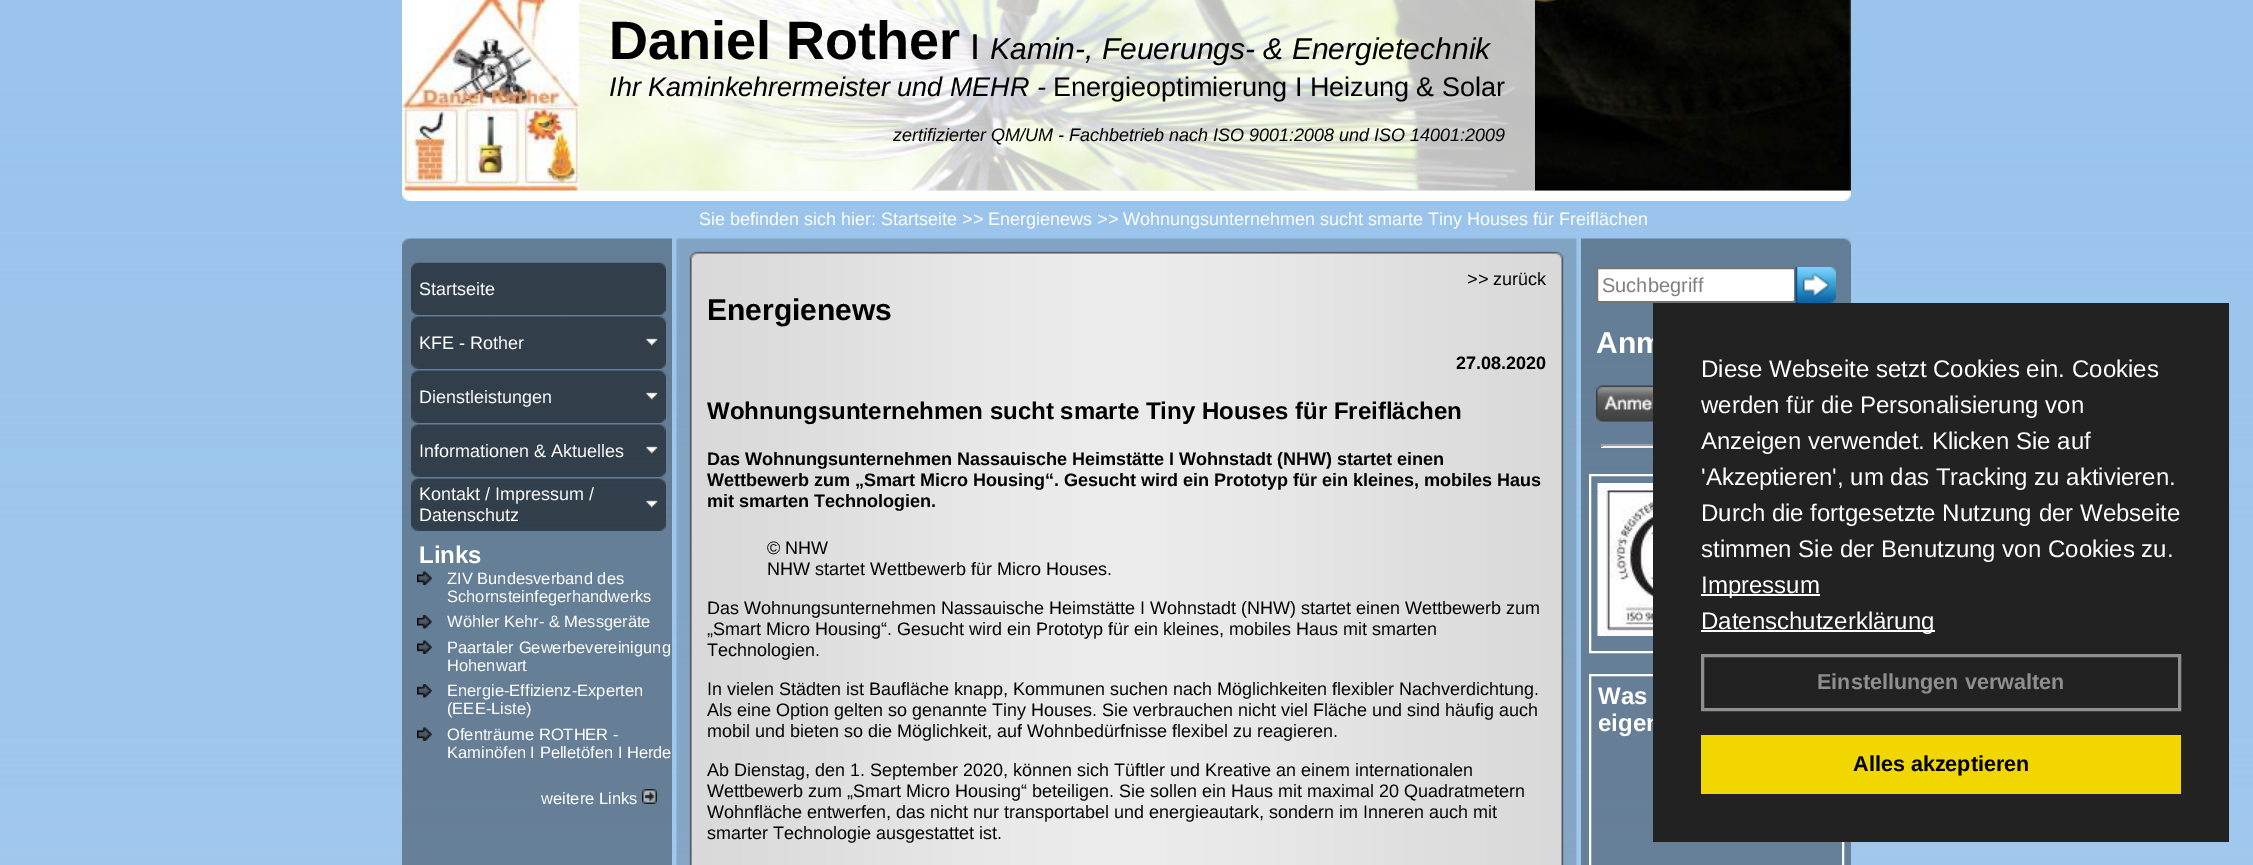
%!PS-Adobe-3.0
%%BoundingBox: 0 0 2253 865
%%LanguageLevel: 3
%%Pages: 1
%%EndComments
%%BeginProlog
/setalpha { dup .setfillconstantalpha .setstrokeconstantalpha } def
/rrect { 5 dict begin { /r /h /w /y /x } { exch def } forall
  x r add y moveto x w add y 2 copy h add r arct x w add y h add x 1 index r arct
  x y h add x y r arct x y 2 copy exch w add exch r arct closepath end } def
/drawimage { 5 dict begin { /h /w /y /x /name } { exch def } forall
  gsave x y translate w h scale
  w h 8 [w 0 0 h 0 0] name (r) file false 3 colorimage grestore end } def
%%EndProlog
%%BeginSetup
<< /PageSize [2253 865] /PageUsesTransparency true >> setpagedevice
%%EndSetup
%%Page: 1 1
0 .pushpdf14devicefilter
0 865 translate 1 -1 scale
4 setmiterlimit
1 setgray
0 0 2253 865 rectfill
(images/1.raw) 0 0 2253 865 drawimage
(images/4.raw) 402 190 1449 11 drawimage
(images/2.raw) 579 0 1272 191 drawimage
402 190 177 1 rectfill
(images/3.raw) 402 0 177 191 drawimage
0.75 setalpha
579 0 956 191 rectfill
1 setalpha
(images/5.raw) 402 238 270 23 drawimage
(images/6.raw) 676 238 901 23 drawimage
(images/7.raw) 1581 238 270 23 drawimage
0.36 setalpha
0 setgray
402 261 270 604 rectfill
1 setalpha
(images/8.raw) 411 262 255 53 drawimage
(images/9.raw) 411 316 255 53 drawimage
(images/10.raw) 646 338 12 8 drawimage
(images/11.raw) 411 370 255 53 drawimage
(images/12.raw) 646 392 12 8 drawimage
(images/13.raw) 411 424 255 53 drawimage
(images/14.raw) 646 446 12 8 drawimage
(images/15.raw) 411 478 255 53 drawimage
(images/16.raw) 646 500 12 8 drawimage
(images/17.raw) 417 571 15 14 drawimage
(images/18.raw) 417 615 15 14 drawimage
(images/19.raw) 417 640 15 14 drawimage
(images/20.raw) 417 684 15 14 drawimage
(images/21.raw) 417 727 15 14 drawimage
(images/22.raw) 642 789 15 15 drawimage
(images/23.raw) 676 261 901 604 drawimage
0.36 setalpha
1581 261 270 604 rectfill
1 setalpha
1 setgray
1597 268 198 34 2 rrect gsave fill grestore
0.463 setgray
2 setlinewidth
stroke
(images/24.raw) 1795 267 41 36 drawimage
(images/25.raw) 1596 385 57 37 drawimage
0.624 setgray
1601 444 52 2 rectfill
0.933 setgray
1601 446 52 2 rectfill
0.624 setgray
1601 444 2 3 rectfill
1 setgray
1590 475 253 177 rectstroke
(images/26.raw) 1597 483 56 153 drawimage
1590 675 253 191 rectstroke
/LiberationSans-Bold [54 0 0 -54 0 0] selectfont
0 setgray
609 59 moveto (Daniel Rother) show
/LiberationSans-Regular [36 0 0 -36 0 0] selectfont
970 59 moveto (I) show
/LiberationSans-Italic [30 0 0 -30 0 0] selectfont
990 59 moveto (Kamin-, Feuerungs- & Energietechnik) show
/LiberationSans-Italic [27 0 0 -27 0 0] selectfont
609 96 moveto (Ihr Kaminkehrermeister und MEHR -) show
/LiberationSans-Regular [27 0 0 -27 0 0] selectfont
1053 96 moveto (Energieoptimierung I Heizung & Solar) show
/LiberationSans-Italic [18 0 0 -18 0 0] selectfont
893 141 moveto (zertifizierter QM/UM - Fachbetrieb nach ISO 9001:2008 und ISO 14001:2009) show
/LiberationSans-Regular [18 0 0 -18 0 0] selectfont
1 setgray
699 225 moveto (Sie befinden sich hier: Startseite >> Energienews >> Wohnungsunternehmen sucht smarte Tiny Houses für Freiflächen) show
419 295 moveto (Startseite) show
419 349 moveto (KFE - Rother) show
419 403 moveto (Dienstleistungen) show
419 457 moveto (Informationen & Aktuelles) show
419 500 moveto (Kontakt / Impressum /) show
419 521 moveto (Datenschutz) show
/LiberationSans-Bold [24 0 0 -24 0 0] selectfont
419 563 moveto (Links) show
/LiberationSans-Regular [16.5 0 0 -16.5 0 0] selectfont
447 584 moveto (ZIV Bundesverband des) show
447 602 moveto (Schornsteinfegerhandwerks) show
447 627 moveto (Wöhler Kehr- & Messgeräte) show
447 653 moveto (Paartaler Gewerbevereinigung) show
447 671 moveto (Hohenwart) show
447 696 moveto (Energie-Effizienz-Experten) show
447 714 moveto (\(EEE-Liste\)) show
447 740 moveto (Ofenträume ROTHER -) show
447 758 moveto (Kaminöfen I Pelletöfen I Herde) show
541 804 moveto (weitere Links) show
/LiberationSans-Regular [18 0 0 -18 0 0] selectfont
0 setgray
1467 285 moveto (>> zurück) show
/LiberationSans-Bold [30 0 0 -30 0 0] selectfont
707 320 moveto (Energienews) show
/LiberationSans-Bold [18 0 0 -18 0 0] selectfont
1456 369 moveto (27.08.2020) show
/LiberationSans-Bold [24 0 0 -24 0 0] selectfont
707 419 moveto (Wohnungsunternehmen sucht smarte Tiny Houses für Freiflächen) show
/LiberationSans-Bold [18 0 0 -18 0 0] selectfont
707 465 moveto (Das Wohnungsunternehmen Nassauische Heimstätte I Wohnstadt \(NHW\) startet einen) show
707 486 moveto (Wettbewerb zum „Smart Micro Housing“. Gesucht wird ein Prototyp für ein kleines, mobiles Haus) show
707 507 moveto (mit smarten Technologien.) show
/LiberationSans-Regular [18 0 0 -18 0 0] selectfont
767 554 moveto (© NHW) show
767 575 moveto (NHW startet Wettbewerb für Micro Houses.) show
707 614 moveto (Das Wohnungsunternehmen Nassauische Heimstätte I Wohnstadt \(NHW\) startet einen Wettbewerb zum) show
707 635 moveto („Smart Micro Housing“. Gesucht wird ein Prototyp für ein kleines, mobiles Haus mit smarten) show
707 656 moveto (Technologien.) show
707 695 moveto (In vielen Städten ist Baufläche knapp, Kommunen suchen nach Möglichkeiten flexibler Nachverdichtung.) show
707 716 moveto (Als eine Option gelten so genannte Tiny Houses. Sie verbrauchen nicht viel Fläche und sind häufig auch) show
707 737 moveto (mobil und bieten so die Möglichkeit, auf Wohnbedürfnisse flexibel zu reagieren.) show
707 776 moveto (Ab Dienstag, den 1. September 2020, können sich Tüftler und Kreative an einem internationalen) show
707 797 moveto (Wettbewerb zum „Smart Micro Housing“ beteiligen. Sie sollen ein Haus mit maximal 20 Quadratmetern) show
707 818 moveto (Wohnfläche entwerfen, das nicht nur transportabel und energieautark, sondern im Inneren auch mit) show
707 839 moveto (smarter Technologie ausgestattet ist.) show
/LiberationSans-Regular [20 0 0 -20 0 0] selectfont
0.502 setgray
1602 292 moveto (Suchbegriff) show
/LiberationSans-Bold [30 0 0 -30 0 0] selectfont
1 setgray
1596 353 moveto (Anm) show
/LiberationSans-Bold [24 0 0 -24 0 0] selectfont
1598 704 moveto (Was) show
1598 731 moveto (eigen) show
0.133 setgray
1653 303 576 539 rectfill
/LiberationSans-Regular [24 0 0 -24 0 0] selectfont
1 setgray
1701 377 moveto (Diese Webseite setzt Cookies ein. Cookies) show
1701 413 moveto (werden für die Personalisierung von) show
1701 449 moveto (Anzeigen verwendet. Klicken Sie auf) show
1701 485 moveto ('Akzeptieren', um das Tracking zu aktivieren.) show
1701 521 moveto (Durch die fortgesetzte Nutzung der Webseite) show
1701 557 moveto (stimmen Sie der Benutzung von Cookies zu.) show
1701 594 119 2 rectfill
1701 593 moveto (Impressum) show
1701 630 234 2 rectfill
1701 629 moveto (Datenschutzerklärung) show
0.561 setgray
3 setlinewidth
1702.5 655.5 477 54 rectstroke
/LiberationSans-Bold [21.6 0 0 -21.6 0 0] selectfont
1817 689 moveto (Einstellungen verwalten) show
0.945 0.839 0 setrgbcolor
1701 735 480 59 rectfill
0 setgray
1853 771 moveto (Alles akzeptieren) show
.poppdf14devicefilter showpage
%%EOF
